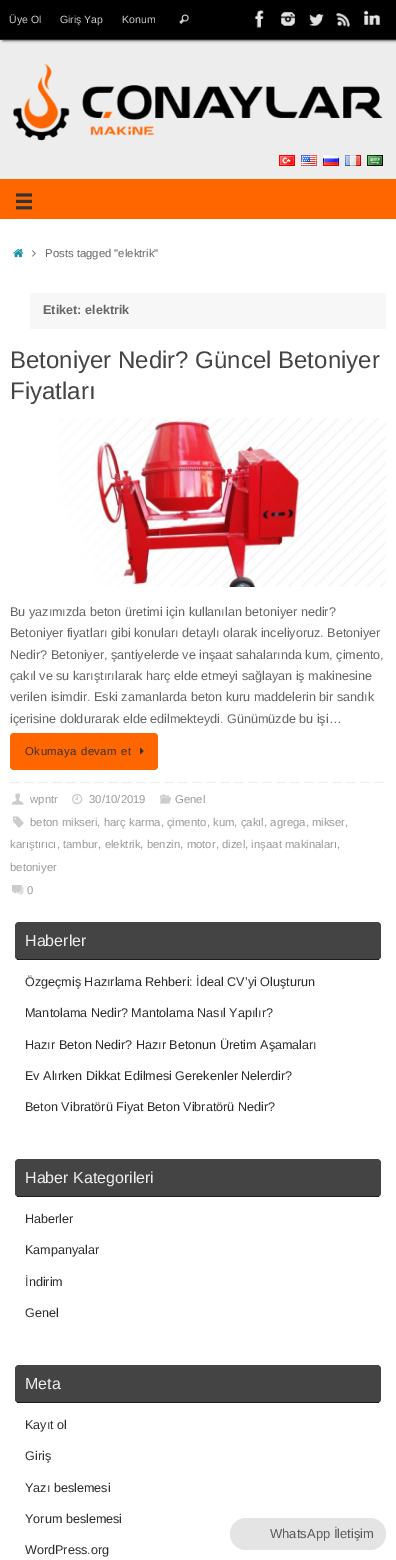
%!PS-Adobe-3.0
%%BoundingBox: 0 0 396 1560
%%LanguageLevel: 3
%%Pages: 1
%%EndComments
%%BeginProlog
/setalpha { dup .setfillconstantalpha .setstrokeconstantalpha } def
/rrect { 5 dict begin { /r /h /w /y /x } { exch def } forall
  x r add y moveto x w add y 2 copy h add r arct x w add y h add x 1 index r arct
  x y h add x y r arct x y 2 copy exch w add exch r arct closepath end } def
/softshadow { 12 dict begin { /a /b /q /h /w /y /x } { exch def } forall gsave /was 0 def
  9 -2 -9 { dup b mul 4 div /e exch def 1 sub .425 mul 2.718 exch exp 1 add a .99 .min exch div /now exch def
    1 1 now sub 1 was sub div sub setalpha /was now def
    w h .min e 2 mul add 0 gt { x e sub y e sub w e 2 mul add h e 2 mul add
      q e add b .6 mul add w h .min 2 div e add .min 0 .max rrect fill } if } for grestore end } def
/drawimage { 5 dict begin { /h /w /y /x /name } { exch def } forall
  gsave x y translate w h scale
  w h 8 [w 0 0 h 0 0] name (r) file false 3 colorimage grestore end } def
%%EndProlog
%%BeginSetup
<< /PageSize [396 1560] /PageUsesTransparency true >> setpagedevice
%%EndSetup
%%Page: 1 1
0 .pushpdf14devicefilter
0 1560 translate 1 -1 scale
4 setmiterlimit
0.929 setgray
0 0 396 1560 rectfill
0 setgray
3 0 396 40 0 1.5 1 softshadow
0 0 396 39 rectfill
0.157 setgray
0 39 396 1 rectfill
(images/1.raw) 179 14 10 10 drawimage
(images/2.raw) 255 10 9 18 drawimage
(images/3.raw) 281 12 14 14 drawimage
(images/4.raw) 309 14 15 12 drawimage
(images/5.raw) 336 13 14 14 drawimage
(images/6.raw) 363 10 17 15 drawimage
(images/7.raw) 13 64 370 77 drawimage
(images/8.raw) 279 155 16 11 drawimage
(images/9.raw) 301 155 16 11 drawimage
(images/10.raw) 323 155 16 11 drawimage
(images/11.raw) 345 155 16 11 drawimage
(images/12.raw) 367 155 16 11 drawimage
1 0.4 0 setrgbcolor
0 179 396 40 rectfill
(images/13.raw) 16 193 16 17 drawimage
1 setgray
0 219 396 1341 rectfill
(images/14.raw) 13 249 11 9 drawimage
(images/15.raw) 32 250 4 7 drawimage
0.969 setgray
30 293 356 36 rectfill
(images/16.raw) 58 418 328 169 drawimage
1 0.4 0 setrgbcolor
10 733 148 37 4 rrect fill
(images/17.raw) 140 747 4 8 drawimage
(images/18.raw) 10 782 374 1 drawimage
(images/19.raw) 12 793 12 12 drawimage
(images/20.raw) 72 793 11 12 drawimage
(images/21.raw) 160 794 12 10 drawimage
(images/22.raw) 13 816 11 12 drawimage
(images/23.raw) 12 885 12 10 drawimage
0.267 setgray
15 922 366 38 4 rrect fill
0.11 setgray
17 959 362 1 rectfill
0.267 setgray
15 1159 366 38 4 rrect fill
0.11 setgray
17 1196 362 1 rectfill
0.267 setgray
15 1365 366 38 4 rrect fill
0.11 setgray
17 1402 362 1 rectfill
0.894 setgray
230 1518 156 32 16 rrect fill
/LiberationSans-Regular [10.5 0 0 -10.5 0 0] selectfont
0.8 setgray
9 23 moveto (Üye Ol) show
60 23 moveto (Giriş Yap) show
122 23 moveto (Konum) show
/LiberationSans-Regular [11.35 0 0 -11.35 0 0] selectfont
0.4 setgray
45 257 moveto (Posts tagged "elektrik") show
/LiberationSans-Bold [12.6 0 0 -12.6 0 0] selectfont
43 314 moveto (Etiket: elektrik) show
/LiberationSans-Regular [24 0 0 -24 0 0] selectfont
0.267 setgray
10 368 moveto (Betoniyer Nedir? Güncel Betoniyer) show
10 399 moveto (Fiyatları) show
/LiberationSans-Regular [12.6 0 0 -12.6 0 0] selectfont
0.4 setgray
10 616 moveto (Bu yazımızda beton üretimi için kullanılan betoniyer nedir?) show
10 637 moveto (Betoniyer fiyatları gibi konuları detaylı olarak inceliyoruz. Betoniyer) show
10 659 moveto (Nedir? Betoniyer, şantiyelerde ve inşaat sahalarında kum, çimento,) show
10 680 moveto (çakıl ve su karıştırılarak harç elde etmeyi sağlayan iş makinesine) show
10 701 moveto (verilen isimdir. Eski zamanlarda beton kuru maddelerin bir sandık) show
10 723 moveto (içerisine doldurarak elde edilmekteydi. Günümüzde bu işi…) show
/LiberationSans-Regular [11.35 0 0 -11.35 0 0] selectfont
0.2 setgray
25 755 moveto 0.5 0 (Okumaya devam et) ashow
0.6 setgray
30 803 moveto (wpntr) show
89 803 moveto (30/10/2019) show
175 803 moveto (Genel) show
30 826 moveto (beton mikseri, harç karma, çimento, kum, çakıl, agrega, mikser,) show
10 848 moveto (karıştırıcı, tambur, elektrik, benzin, motor, dizel, inşaat makinaları,) show
10 871 moveto (betoniyer) show
27 894 moveto (0) show
/LiberationSans-Regular [16 0 0 -16 0 0] selectfont
0.933 setgray
25 946 moveto (Haberler) show
/LiberationSans-Regular [12.6 0 0 -12.6 0 0] selectfont
0.176 setgray
25 986 moveto (Özgeçmiş Hazırlama Rehberi: İdeal CV’yi Oluşturun) show
25 1017 moveto (Mantolama Nedir? Mantolama Nasıl Yapılır?) show
25 1049 moveto (Hazır Beton Nedir? Hazır Betonun Üretim Aşamaları) show
25 1080 moveto (Ev Alırken Dikkat Edilmesi Gerekenler Nelerdir?) show
25 1111 moveto (Beton Vibratörü Fiyat Beton Vibratörü Nedir?) show
/LiberationSans-Regular [16 0 0 -16 0 0] selectfont
0.933 setgray
25 1183 moveto (Haber Kategorileri) show
/LiberationSans-Regular [12.6 0 0 -12.6 0 0] selectfont
0.176 setgray
25 1223 moveto (Haberler) show
25 1254 moveto (Kampanyalar) show
25 1286 moveto (İndirim) show
25 1317 moveto (Genel) show
/LiberationSans-Regular [16 0 0 -16 0 0] selectfont
0.933 setgray
25 1389 moveto (Meta) show
/LiberationSans-Regular [12.6 0 0 -12.6 0 0] selectfont
0.176 setgray
25 1429 moveto (Kayıt ol) show
25 1460 moveto (Giriş) show
25 1492 moveto (Yazı beslemesi) show
25 1523 moveto (Yorum beslemesi) show
25 1554 moveto (WordPress.org) show
/LiberationSans-Regular [13 0 0 -13 0 0] selectfont
0.357 setgray
270 1538 moveto (WhatsApp İletişim) show
.poppdf14devicefilter showpage
%%EOF
